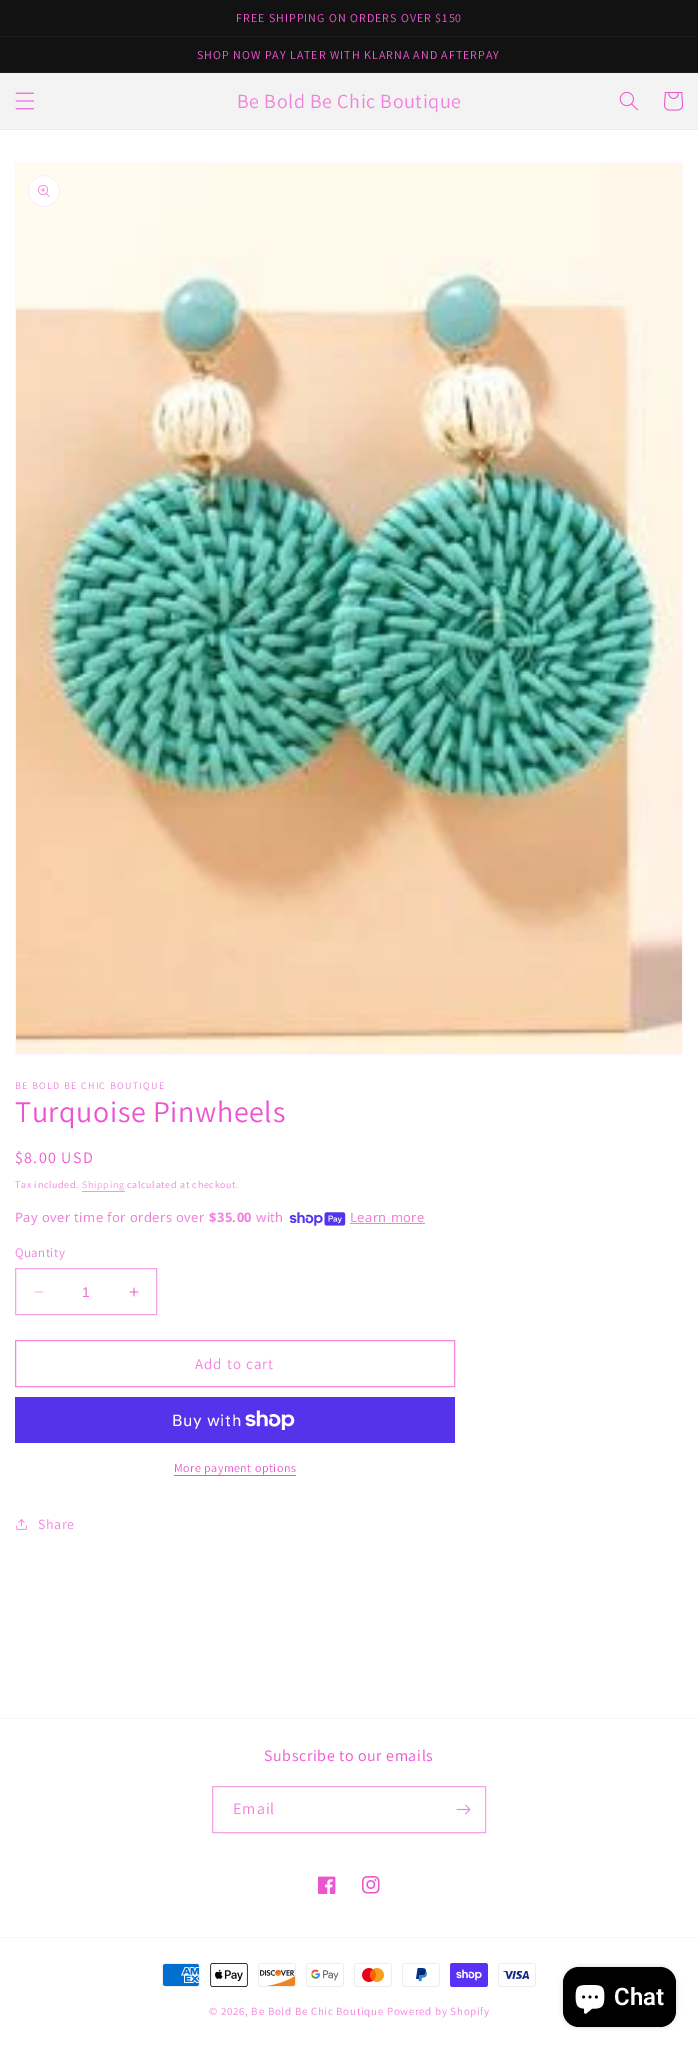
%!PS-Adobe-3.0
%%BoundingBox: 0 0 698 2048
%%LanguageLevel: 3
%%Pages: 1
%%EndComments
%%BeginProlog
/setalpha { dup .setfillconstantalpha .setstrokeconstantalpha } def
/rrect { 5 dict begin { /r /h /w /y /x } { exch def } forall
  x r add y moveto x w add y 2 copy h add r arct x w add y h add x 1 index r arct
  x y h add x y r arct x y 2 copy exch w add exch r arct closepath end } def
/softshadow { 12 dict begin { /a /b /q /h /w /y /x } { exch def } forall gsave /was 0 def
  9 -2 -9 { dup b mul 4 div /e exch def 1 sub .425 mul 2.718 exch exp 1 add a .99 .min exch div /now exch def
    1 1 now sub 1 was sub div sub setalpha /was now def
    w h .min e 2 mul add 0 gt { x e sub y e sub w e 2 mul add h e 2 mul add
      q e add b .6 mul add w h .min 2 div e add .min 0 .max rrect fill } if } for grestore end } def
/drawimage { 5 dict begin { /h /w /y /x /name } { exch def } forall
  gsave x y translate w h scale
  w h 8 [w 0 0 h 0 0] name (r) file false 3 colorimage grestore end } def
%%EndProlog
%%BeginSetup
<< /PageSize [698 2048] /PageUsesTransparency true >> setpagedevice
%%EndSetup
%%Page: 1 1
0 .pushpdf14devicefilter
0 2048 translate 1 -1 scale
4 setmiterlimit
1 setgray
0 0 698 2048 rectfill
0.071 setgray
0 0 698 36 rectfill
0.141 0.09 0.129 setrgbcolor
0 36 698 1 rectfill
0.071 setgray
0 37 698 35 rectfill
0.141 0.09 0.129 setrgbcolor
0 72 698 1 rectfill
0.953 setgray
0 73 698 56 rectfill
0.953 0.902 0.941 setrgbcolor
0 129 698 1 rectfill
(images/1.raw) 15 92 20 18 drawimage
(images/2.raw) 619 91 19 20 drawimage
(images/3.raw) 664 92 20 19 drawimage
0.996 0.969 0.992 setrgbcolor
15.5 162.5 667 892 rectstroke
(images/4.raw) 16 163 666 891 drawimage
1 setgray
newpath 44 191 16 0 360 arc closepath fill
0.1 setalpha
0.929 0.333 0.816 setrgbcolor
newpath 44 191 15.5 0 360 arc closepath stroke
1 setalpha
(images/5.raw) 38 185 12 12 drawimage
0.969 0.588 0.894 setrgbcolor
82 1191 43 1 rectfill
(images/6.raw) 289 1212 57 14 drawimage
0.949 0.502 0.863 setrgbcolor
350 1223 75 1 rectfill
(images/7.raw) 34 1291 10 2 drawimage
(images/8.raw) 129 1287 10 10 drawimage
0.961 0.635 0.898 setrgbcolor
15.5 1268.5 141 46 rectstroke
0.961 0.518 0.875 setrgbcolor
15.5 1340.5 439 46 rectstroke
0.329 0.2 0.922 setrgbcolor
15 1397 440 46 rectfill
(images/9.raw) 245 1410 50 20 drawimage
0.929 0.333 0.816 setrgbcolor
174 1475 122 1 rectfill
(images/10.raw) 16 1519 11 11 drawimage
0.996 0.945 0.984 setrgbcolor
0 1718 698 1 rectfill
0.961 0.635 0.898 setrgbcolor
212.5 1786.5 273 46 rectstroke
(images/11.raw) 456 1804 15 11 drawimage
(images/12.raw) 318 1876 18 18 drawimage
(images/13.raw) 362 1876 18 18 drawimage
0.996 0.945 0.984 setrgbcolor
0 1937 698 1 rectfill
(images/14.raw) 162 1963 38 24 drawimage
(images/15.raw) 210 1963 38 24 drawimage
(images/16.raw) 258 1963 38 24 drawimage
(images/17.raw) 306 1963 38 24 drawimage
(images/18.raw) 354 1963 38 24 drawimage
(images/19.raw) 402 1963 38 24 drawimage
(images/20.raw) 450 1963 38 24 drawimage
(images/21.raw) 498 1963 38 24 drawimage
0 setgray
563 1967 113 60 16 2.5 0.15 softshadow
563 1967 113 60 16 rrect fill
(images/22.raw) 575 1985 30 29 drawimage
/Assistant-Regular [12 0 0 -12 0 0] selectfont
0.929 0.333 0.816 setrgbcolor
236 22 moveto 1 0 (FREE SHIPPING ON ORDERS OVER $150) ashow
197 59 moveto 1 0 (SHOP NOW PAY LATER WITH KLARNA AND AFTERPAY) ashow
/Assistant-Regular [20 0 0 -20 0 0] selectfont
0.949 0.502 0.863 setrgbcolor
237 108 moveto 0.6 0 (Be Bold Be Chic Boutique) ashow
/Assistant-Regular [10 0 0 -10 0 0] selectfont
15 1089 moveto 1.3 0 (BE BOLD BE CHIC BOUTIQUE) ashow
/Assistant-Regular [30 0 0 -30 0 0] selectfont
0.929 0.333 0.816 setrgbcolor
15 1122 moveto 0.6 0 (Turquoise Pinwheels) ashow
/Assistant-Regular [16 0 0 -16 0 0] selectfont
15 1163 moveto 1.3 0 ($8.00 USD) ashow
/Assistant-Regular [10 0 0 -10 0 0] selectfont
0.949 0.502 0.863 setrgbcolor
15 1188 moveto 0.7 0 (Tax included.) ashow
0.969 0.588 0.894 setrgbcolor
82 1188 moveto 0.7 0 (Shipping) ashow
0.949 0.502 0.863 setrgbcolor
127 1188 moveto 0.7 0 (calculated at checkout.) ashow
/NotoSans-Regular [13 0 0 -13 0 0] selectfont
15 1222 moveto 0.4 0 (Pay over time for orders over) ashow
/NotoSans-Bold [13 0 0 -13 0 0] selectfont
209 1222 moveto 0.4 0 ($35.00) ashow
/NotoSans-Regular [13 0 0 -13 0 0] selectfont
256 1222 moveto 0.4 0 (with) ashow
350 1222 moveto 0.4 0 (Learn more) ashow
/Assistant-Regular [13 0 0 -13 0 0] selectfont
15 1257 moveto 0.4 0 (Quantity) ashow
/LiberationSans-Regular [14 0 0 -14 0 0] selectfont
0.941 0.435 0.843 setrgbcolor
82 1297 moveto (1) show
/Assistant-Regular [15 0 0 -15 0 0] selectfont
0.949 0.502 0.863 setrgbcolor
195 1369 moveto 1 0 (Add to cart) ashow
/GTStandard-Regular [16 0 0 -16 0 0] selectfont
1 setgray
172 1426 moveto 0.6 0 (Buy with) ashow
/Assistant-Regular [12 0 0 -12 0 0] selectfont
0.929 0.333 0.816 setrgbcolor
174 1472 moveto 0.5 0 (More payment options) ashow
/Assistant-Regular [14 0 0 -14 0 0] selectfont
0.949 0.502 0.863 setrgbcolor
38 1529 moveto 0.6 0 (Share) ashow
/Assistant-Regular [16 0 0 -16 0 0] selectfont
0.929 0.333 0.816 setrgbcolor
264 1761 moveto 0.6 0 (Subscribe to our emails) ashow
0.949 0.502 0.863 setrgbcolor
233 1814 moveto 1 0 (Email) ashow
/Assistant-Regular [11 0 0 -11 0 0] selectfont
209 2015 moveto 0.7 0 (© 2026, Be Bold Be Chic Boutique Powered by Shopify) ashow
/Roboto-SemiBold [24 0 0 -24 0 0] selectfont
1 setgray
614 2005 moveto (Chat) show
.poppdf14devicefilter showpage
%%EOF
